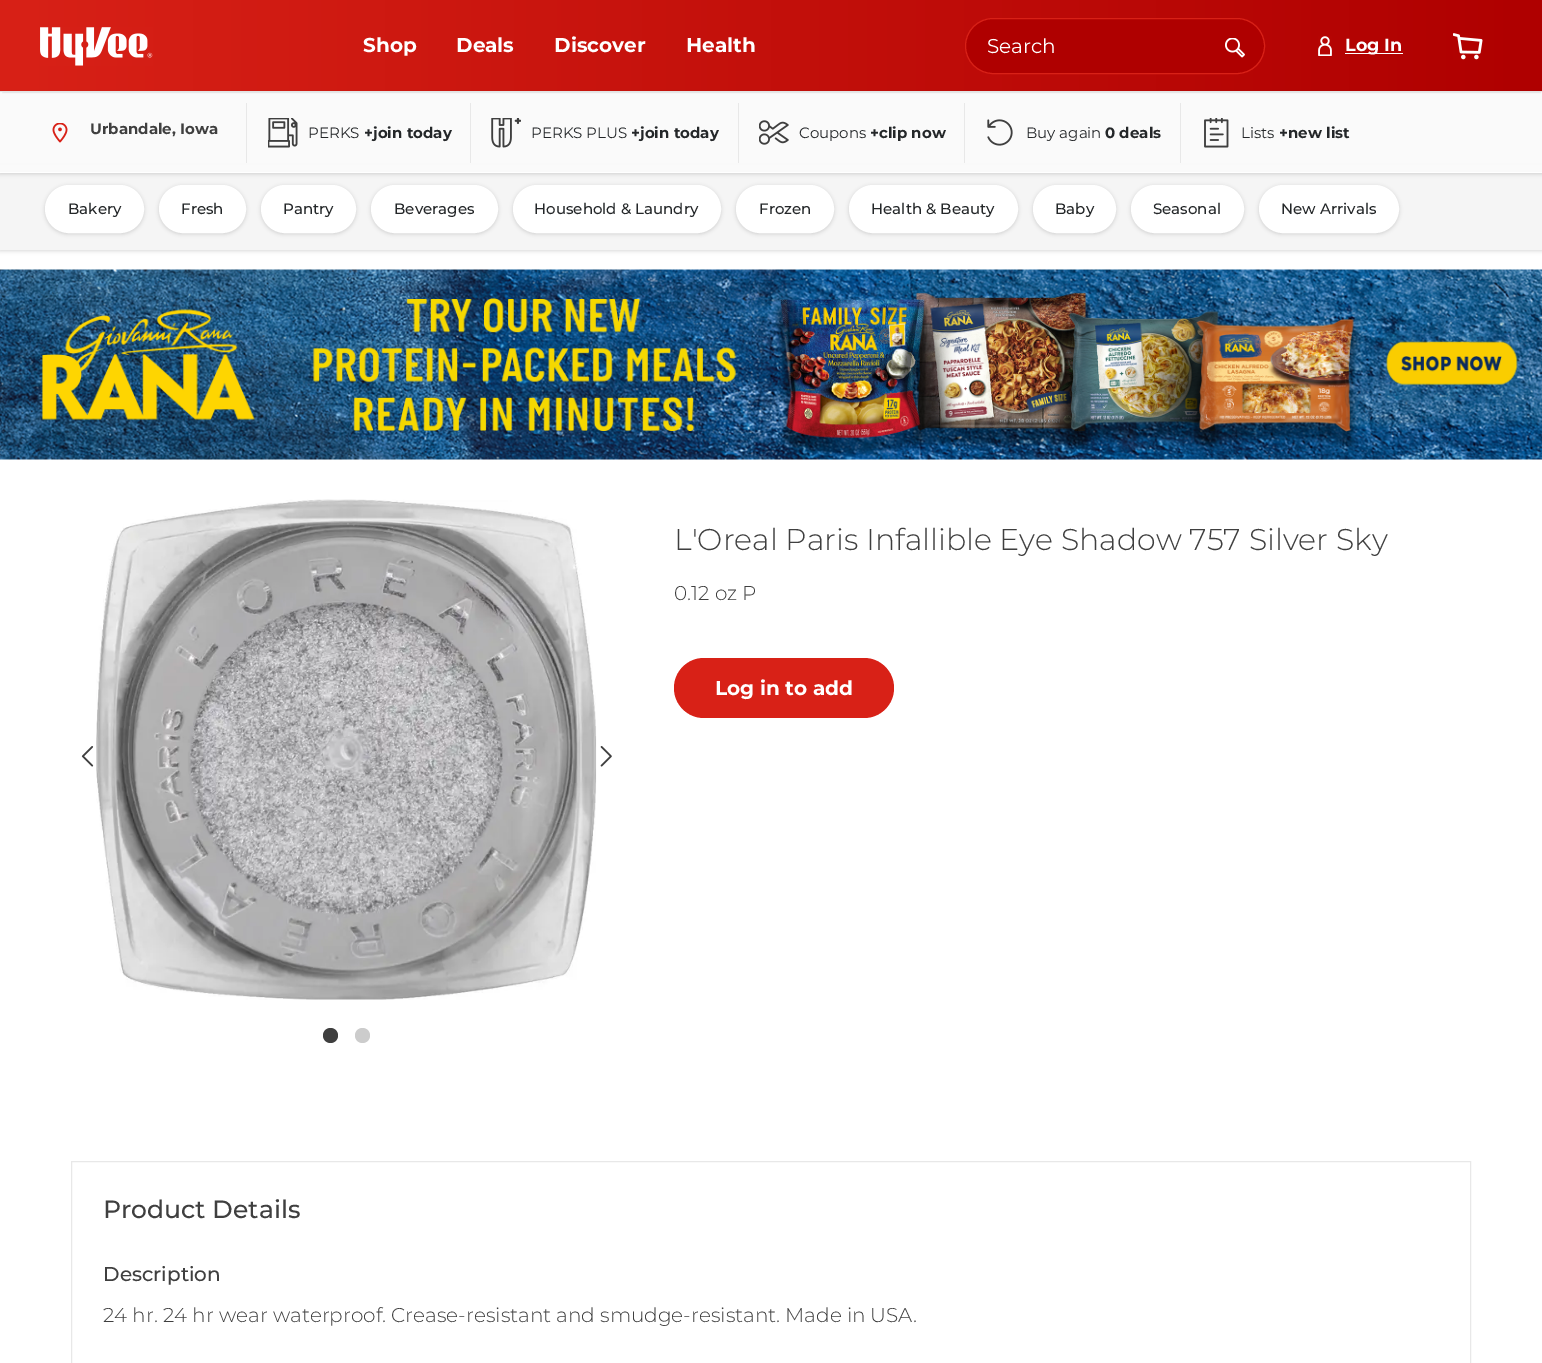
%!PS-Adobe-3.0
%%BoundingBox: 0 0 1542 1363
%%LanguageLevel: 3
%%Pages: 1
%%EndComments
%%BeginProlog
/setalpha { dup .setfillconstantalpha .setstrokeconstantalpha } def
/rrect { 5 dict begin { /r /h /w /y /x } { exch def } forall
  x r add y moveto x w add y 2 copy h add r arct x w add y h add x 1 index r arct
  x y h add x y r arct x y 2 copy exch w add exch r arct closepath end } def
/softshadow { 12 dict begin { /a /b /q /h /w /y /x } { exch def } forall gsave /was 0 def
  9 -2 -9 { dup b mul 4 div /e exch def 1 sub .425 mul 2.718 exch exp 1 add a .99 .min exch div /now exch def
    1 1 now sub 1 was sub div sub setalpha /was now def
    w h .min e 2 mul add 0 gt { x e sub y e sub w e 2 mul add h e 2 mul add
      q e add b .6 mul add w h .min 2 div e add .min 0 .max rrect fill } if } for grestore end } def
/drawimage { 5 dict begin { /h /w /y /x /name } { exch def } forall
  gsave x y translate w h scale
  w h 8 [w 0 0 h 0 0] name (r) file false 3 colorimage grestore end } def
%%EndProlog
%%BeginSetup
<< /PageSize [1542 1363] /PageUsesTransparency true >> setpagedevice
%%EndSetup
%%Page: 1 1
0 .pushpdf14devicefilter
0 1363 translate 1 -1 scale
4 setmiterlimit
1 setgray
0 0 1542 1363 rectfill
0 setgray
0 168 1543 83 0 2 0.15 softshadow
1 setgray
0 165 1542 8 rectfill
gsave newpath 0 0 moveto 1542 0 lineto 1542 91 lineto 0 91 lineto closepath clip newpath
<< /ShadingType 2 /ColorSpace /DeviceRGB /Coords [0 46 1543 46] /Extend [true true] /Function << /FunctionType 2 /Domain [0 1] /C0 [0.847 0.129 0.09] /C1 [0.686 0 0] /N 1 >> >> shfill grestore
gsave
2 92 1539 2 rectclip
0 setgray
3 5 1537 86 0 2.5 0.2 softshadow
grestore
(images/1.raw) 40 27 113 39 drawimage
0.686 0 0 setrgbcolor
965.5 18.5 299 55 27.5 rrect gsave fill grestore
0.847 0.129 0.09 setrgbcolor
stroke
(images/2.raw) 1225 38 20 20 drawimage
(images/3.raw) 1318 36 14 20 drawimage
1 setgray
1345 53 58 1 rectfill
(images/4.raw) 1453 33 30 27 drawimage
0.91 setgray
0 91 1542 1 rectfill
0.961 setgray
0 173 1542 77 rectfill
gsave
newpath 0 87 moveto 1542 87 lineto 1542 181 lineto 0 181 lineto closepath 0 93 moveto 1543 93 lineto 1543 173 lineto 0 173 lineto closepath eoclip newpath
0 setgray
0 94 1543 80 0 2 0.15 softshadow
grestore
0.5 setalpha
0 93 1542 79 rectfill
1 setalpha
(images/5.raw) 52 123 16 20 drawimage
0.91 setgray
246 103 1 60 rectfill
(images/6.raw) 268 118 30 30 drawimage
470 103 1 60 rectfill
(images/7.raw) 491 118 30 30 drawimage
738 103 1 60 rectfill
(images/8.raw) 759 120 30 25 drawimage
964 103 1 60 rectfill
(images/9.raw) 987 119 26 27 drawimage
1180 103 1 60 rectfill
(images/10.raw) 1204 118 25 30 drawimage
0 setgray
45 186 99 48 24 2 0.15 softshadow
1 setgray
46.5 186.5 96 45 22.5 rrect gsave fill grestore
3 setlinewidth
stroke
0 setgray
159 186 87 48 24 2 0.15 softshadow
1 setgray
160.5 186.5 84 45 22.5 rrect gsave fill grestore
stroke
0 setgray
261 186 95 48 24 2 0.15 softshadow
1 setgray
262.5 186.5 92 45 22.5 rrect gsave fill grestore
stroke
0 setgray
371 186 127 48 24 2 0.15 softshadow
1 setgray
372.5 186.5 124 45 22.5 rrect gsave fill grestore
stroke
0 setgray
513 186 208 48 24 2 0.15 softshadow
1 setgray
514.5 186.5 205 45 22.5 rrect gsave fill grestore
stroke
0 setgray
736 186 98 48 24 2 0.15 softshadow
1 setgray
737.5 186.5 95 45 22.5 rrect gsave fill grestore
stroke
0 setgray
849 186 169 48 24 2 0.15 softshadow
1 setgray
850.5 186.5 166 45 22.5 rrect gsave fill grestore
stroke
0 setgray
1033 186 83 48 24 2 0.15 softshadow
1 setgray
1034.5 186.5 80 45 22.5 rrect gsave fill grestore
stroke
0 setgray
1131 186 113 48 24 2 0.15 softshadow
1 setgray
1132.5 186.5 110 45 22.5 rrect gsave fill grestore
stroke
0 setgray
1259 186 140 48 24 2 0.15 softshadow
1 setgray
1260.5 186.5 137 45 22.5 rrect gsave fill grestore
stroke
(images/11.raw) 0 269 1542 191 drawimage
(images/12.raw) 81 746 13 21 drawimage
(images/13.raw) 96 499 501 501 drawimage
(images/14.raw) 600 746 12 21 drawimage
0.247 setgray
newpath 330.5 1035.5 7.5 0 360 arc closepath fill
0.8 setgray
newpath 362.5 1035.5 7.5 0 360 arc closepath fill
0.847 0.129 0.09 setrgbcolor
674 658 220 60 30 rrect fill
0.91 setgray
1 setlinewidth
71.5 1161.5 1399 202 rectstroke
/Montserrat-Bold [20 0 0 -20 0 0] selectfont
1 setgray
363 52 moveto (Shop) show
456 52 moveto (Deals) show
554 52 moveto (Discover) show
686 52 moveto (Health) show
/Montserrat-Regular [20 0 0 -20 0 0] selectfont
987 53 moveto (Search) show
/Montserrat-Bold [17.5 0 0 -17.5 0 0] selectfont
1345 51 moveto (Log In) show
/Montserrat-Bold [15 0 0 -15 0 0] selectfont
0.247 setgray
90 134 moveto (Urbandale, Iowa) show
/Montserrat-Regular [15 0 0 -15 0 0] selectfont
0.141 0.153 0.161 setrgbcolor
308 138 moveto (PERKS) show
/Montserrat-Bold [15 0 0 -15 0 0] selectfont
364 138 moveto (+join today) show
/Montserrat-Regular [15 0 0 -15 0 0] selectfont
531 138 moveto (PERKS PLUS) show
/Montserrat-Bold [15 0 0 -15 0 0] selectfont
631 138 moveto (+join today) show
/Montserrat-Regular [15 0 0 -15 0 0] selectfont
799 138 moveto (Coupons) show
/Montserrat-Bold [15 0 0 -15 0 0] selectfont
870 138 moveto (+clip now) show
/Montserrat-Regular [15 0 0 -15 0 0] selectfont
1026 138 moveto (Buy again) show
/Montserrat-Bold [15 0 0 -15 0 0] selectfont
1105 138 moveto (0 deals) show
/Montserrat-Regular [15 0 0 -15 0 0] selectfont
1241 138 moveto (Lists) show
/Montserrat-Bold [15 0 0 -15 0 0] selectfont
1279 138 moveto (+new list) show
/Montserrat-Medium [15 0 0 -15 0 0] selectfont
68 214 moveto (Bakery) show
181 214 moveto (Fresh) show
283 214 moveto (Pantry) show
394 214 moveto (Beverages) show
534 214 moveto (Household & Laundry) show
759 214 moveto (Frozen) show
871 214 moveto (Health & Beauty) show
1055 214 moveto (Baby) show
1153 214 moveto (Seasonal) show
1281 214 moveto (New Arrivals) show
/Montserrat-Light [30 0 0 -30 0 0] selectfont
0.247 setgray
674 550 moveto (L'Oreal Paris Infallible Eye Shadow 757 Silver Sky) show
/Montserrat-Light [20 0 0 -20 0 0] selectfont
674 600 moveto (0.12 oz P) show
/Montserrat-Bold [20 0 0 -20 0 0] selectfont
1 setgray
715 695 moveto (Log in to add) show
/Montserrat-Medium [25 0 0 -25 0 0] selectfont
0.247 setgray
103 1218 moveto (Product Details) show
/Montserrat-Medium [20 0 0 -20 0 0] selectfont
103 1281 moveto (Description) show
/Montserrat-Light [20 0 0 -20 0 0] selectfont
103 1322 moveto (24 hr. 24 hr wear waterproof. Crease-resistant and smudge-resistant. Made in USA.) show
.poppdf14devicefilter showpage
%%EOF
